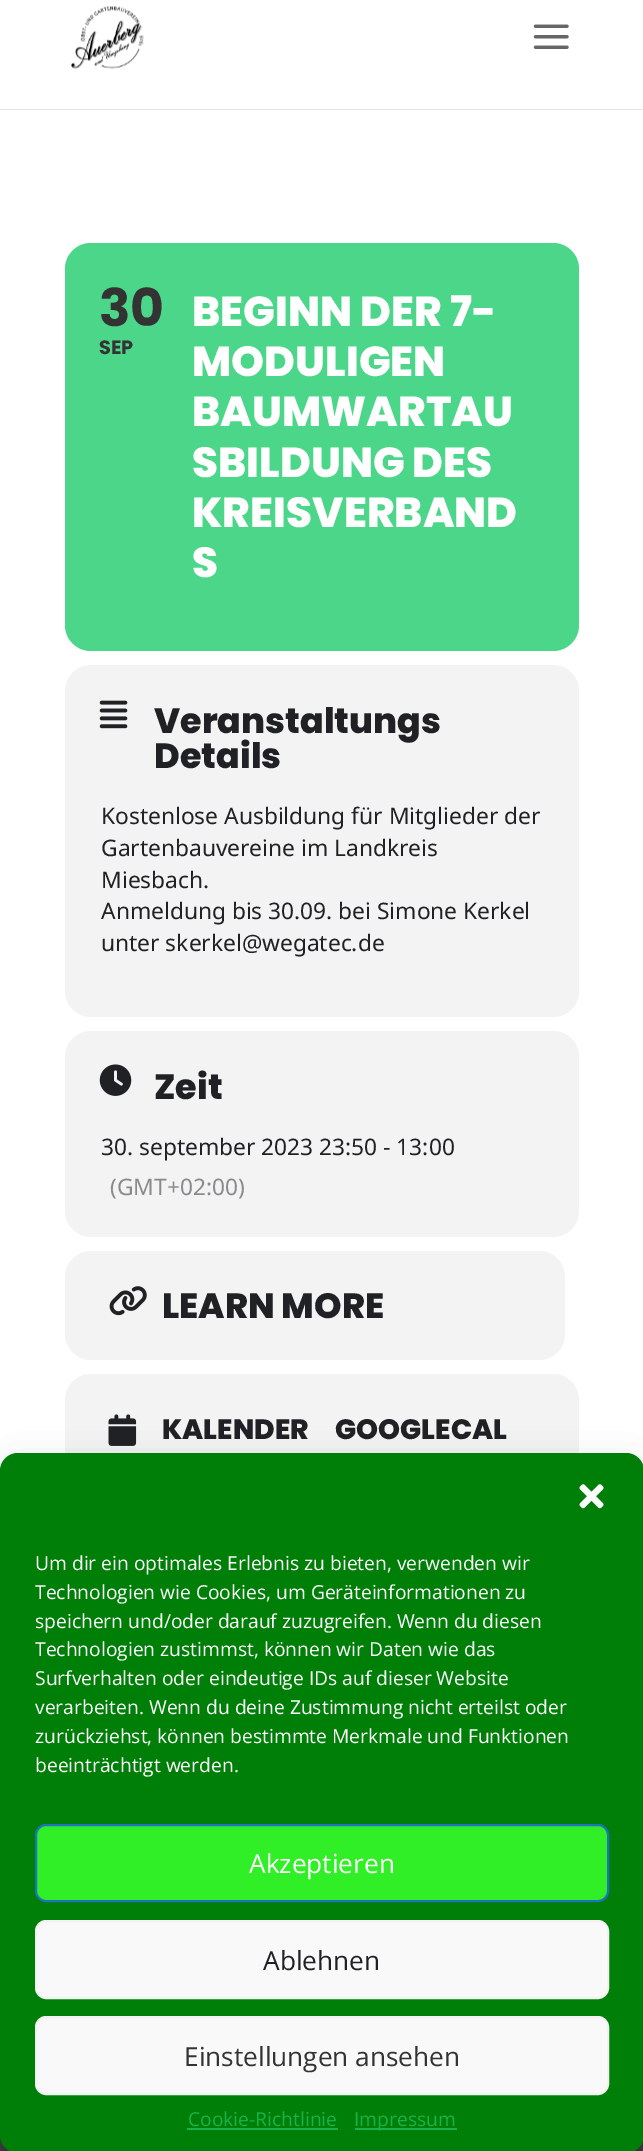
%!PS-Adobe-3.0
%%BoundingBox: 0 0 643 2151
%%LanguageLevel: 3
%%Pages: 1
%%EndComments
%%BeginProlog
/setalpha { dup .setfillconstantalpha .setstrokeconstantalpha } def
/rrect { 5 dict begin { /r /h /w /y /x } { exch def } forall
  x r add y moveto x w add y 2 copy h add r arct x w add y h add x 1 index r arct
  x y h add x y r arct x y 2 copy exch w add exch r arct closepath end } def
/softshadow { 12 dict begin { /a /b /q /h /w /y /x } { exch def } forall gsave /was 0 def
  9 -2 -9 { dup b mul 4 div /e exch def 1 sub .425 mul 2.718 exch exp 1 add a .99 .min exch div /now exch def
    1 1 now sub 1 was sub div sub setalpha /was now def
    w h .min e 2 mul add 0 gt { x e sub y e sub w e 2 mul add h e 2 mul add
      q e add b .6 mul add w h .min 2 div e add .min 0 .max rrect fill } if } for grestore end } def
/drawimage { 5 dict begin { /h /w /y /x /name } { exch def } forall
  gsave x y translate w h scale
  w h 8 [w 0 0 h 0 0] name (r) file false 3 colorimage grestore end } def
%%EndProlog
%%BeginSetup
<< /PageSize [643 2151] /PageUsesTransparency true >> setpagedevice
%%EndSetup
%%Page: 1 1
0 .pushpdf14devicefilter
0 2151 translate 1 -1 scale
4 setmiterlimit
1 setgray
0 0 643 2151 rectfill
0.902 setgray
0 109 643 1 rectfill
(images/1.raw) 71 6 73 63 drawimage
(images/2.raw) 533 24 36 25 drawimage
0.294 0.839 0.537 setrgbcolor
65 243 514 408 26 rrect fill
0.953 setgray
65 665 514 352 26 rrect fill
(images/3.raw) 99 700 29 29 drawimage
65 1031 514 206 26 rrect fill
(images/4.raw) 99 1064 33 32 drawimage
65 1251 500 109 26 rrect fill
(images/5.raw) 109 1286 38 30 drawimage
65 1374 514 114 26 rrect fill
(images/6.raw) 108 1414 29 32 drawimage
0.271 setgray
0 2135 643 16 rectfill
0 setgray
0 1463 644 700 18 5 0.23 softshadow
0 1470 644 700 18 17.5 0.19 softshadow
0 0.498 0.031 setrgbcolor
0 1453 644 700 18 rrect fill
(images/7.raw) 579 1484 25 25 drawimage
0.188 0.937 0.149 setrgbcolor
36 1825 572 76 10 rrect gsave fill grestore
0.118 0.451 0.745 setrgbcolor
2 setlinewidth
stroke
0.976 setgray
36 1921 572 77 10 rrect gsave fill grestore
0.949 setgray
stroke
0.976 setgray
36 2017 572 77 10 rrect gsave fill grestore
0.949 setgray
stroke
0.09 0.698 0.29 setrgbcolor
187 2128 151 2 rectfill
355 2128 102 2 rectfill
/Poppins-Bold [52 0 0 -52 0 0] selectfont
0.2 setgray
99 326 moveto (30) show
/Poppins-Bold [19.25 0 0 -19.25 0 0] selectfont
99 354 moveto (SEP) show
/Poppins-ExtraBold [42 0 0 -42 0 0] selectfont
1 setgray
192 326 moveto (BEGINN DER 7-) show
192 376 moveto (MODULIGEN) show
192 426 moveto (BAUMWARTAU) show
192 477 moveto (SBILDUNG DES) show
192 527 moveto (KREISVERBAND) show
192 577 moveto (S) show
/Poppins-ExtraBold [35 0 0 -35 0 0] selectfont
0.125 0.129 0.141 setrgbcolor
154 733 moveto (Veranstaltungs) show
154 768 moveto (Details) show
/NotoSans-Regular [22.75 0 0 -22.75 0 0] selectfont
101 824 moveto (Kostenlose Ausbildung für Mitglieder der) show
101 856 moveto (Gartenbauvereine im Landkreis) show
101 888 moveto (Miesbach.) show
101 919 moveto (Anmeldung bis 30.09. bei Simone Kerkel) show
101 951 moveto (unter skerkel@wegatec.de) show
/Poppins-ExtraBold [35 0 0 -35 0 0] selectfont
154 1099 moveto (Zeit) show
/NotoSans-Regular [22.75 0 0 -22.75 0 0] selectfont
101 1155 moveto (30. september 2023 23:50 - 13:00) show
0.541 0.541 0.549 setrgbcolor
110 1195 moveto (\(GMT+02:00\)) show
/Poppins-ExtraBold [35 0 0 -35 0 0] selectfont
0.125 0.129 0.141 setrgbcolor
162 1318 moveto (LEARN MORE) show
/Poppins-ExtraBold [28 0 0 -28 0 0] selectfont
162 1439 moveto (KALENDER) show
335 1439 moveto (GOOGLECAL) show
/OpenSans-Regular [19.25 0 0 -19.25 0 0] selectfont
1 setgray
35 1570 moveto (Um dir ein optimales Erlebnis zu bieten, verwenden wir) show
35 1599 moveto (Technologien wie Cookies, um Geräteinformationen zu) show
35 1628 moveto (speichern und/oder darauf zuzugreifen. Wenn du diesen) show
35 1656 moveto (Technologien zustimmst, können wir Daten wie das) show
35 1685 moveto (Surfverhalten oder eindeutige IDs auf dieser Website) show
35 1714 moveto (verarbeiten. Wenn du deine Zustimmung nicht erteilst oder) show
35 1743 moveto (zurückziehst, können bestimmte Merkmale und Funktionen) show
35 1772 moveto (beeinträchtigt werden.) show
/OpenSans-Regular [26.25 0 0 -26.25 0 0] selectfont
249 1873 moveto (Akzeptieren) show
0.125 0.129 0.141 setrgbcolor
263 1970 moveto (Ablehnen) show
0.2 setgray
184 2066 moveto (Einstellungen ansehen) show
/OpenSans-Regular [19.25 0 0 -19.25 0 0] selectfont
0.09 0.698 0.29 setrgbcolor
188 2126 moveto (Cookie-Richtlinie) show
354 2126 moveto (Impressum) show
.poppdf14devicefilter showpage
%%EOF
